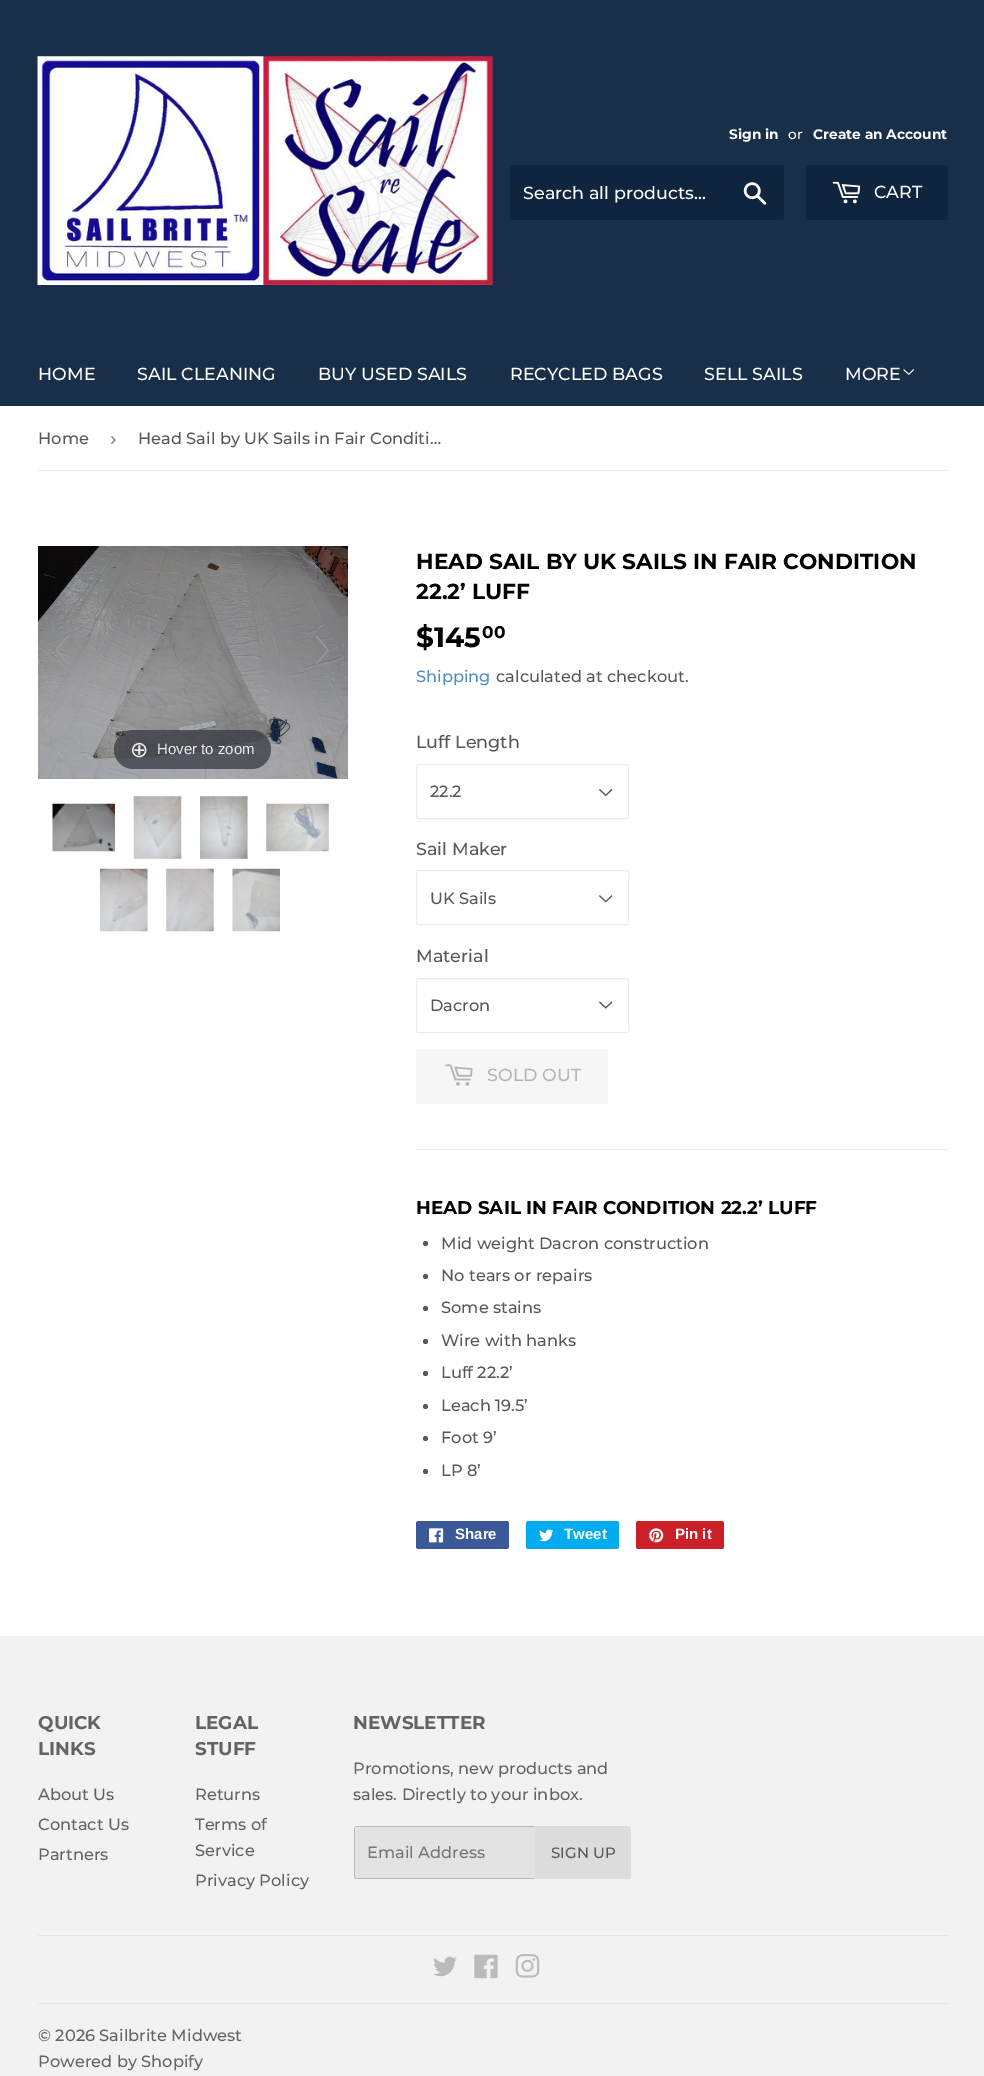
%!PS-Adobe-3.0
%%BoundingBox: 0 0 984 2076
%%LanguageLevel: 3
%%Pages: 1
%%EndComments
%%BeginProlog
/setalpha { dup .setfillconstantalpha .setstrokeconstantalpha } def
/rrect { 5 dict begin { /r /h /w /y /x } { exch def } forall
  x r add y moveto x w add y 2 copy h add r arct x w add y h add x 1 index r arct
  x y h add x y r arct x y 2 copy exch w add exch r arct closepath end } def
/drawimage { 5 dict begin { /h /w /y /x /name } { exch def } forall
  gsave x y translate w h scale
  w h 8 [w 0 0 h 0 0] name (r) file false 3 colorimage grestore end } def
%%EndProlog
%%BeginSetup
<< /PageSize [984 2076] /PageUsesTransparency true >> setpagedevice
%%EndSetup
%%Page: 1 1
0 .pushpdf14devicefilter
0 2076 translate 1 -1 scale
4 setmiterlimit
1 setgray
0 0 984 2076 rectfill
0.094 0.18 0.286 setrgbcolor
0 0 984 406 rectfill
(images/1.raw) 37 56 456 229 drawimage
0.059 0.141 0.239 setrgbcolor
510 165 274 55 2.5 rrect fill
(images/2.raw) 743 182 24 23 drawimage
806 165 142 55 2.5 rrect fill
(images/3.raw) 832 181 29 23 drawimage
(images/4.raw) 903 369 11 6 drawimage
0.925 setgray
38 470 910 1 rectfill
(images/7.raw) 38 546 310 233 drawimage
(images/5.raw) 55 634 15 31 drawimage
(images/6.raw) 316 636 13 28 drawimage
0.7 setalpha
0.192 0.2 0.239 setrgbcolor
114 730 157 39 19.5 rrect fill
1 setalpha
(images/8.raw) 52 803 63 49 drawimage
(images/9.raw) 133 796 49 63 drawimage
(images/10.raw) 200 796 48 63 drawimage
(images/11.raw) 266 803 63 49 drawimage
(images/12.raw) 100 868 48 64 drawimage
(images/13.raw) 166 868 48 64 drawimage
(images/14.raw) 232 868 48 64 drawimage
(images/15.raw) 599 788 14 9 drawimage
0.925 setgray
416.5 764.5 212 54 2 rrect stroke
(images/16.raw) 599 895 14 8 drawimage
416.5 870.5 212 54 2 rrect stroke
(images/17.raw) 599 1001 14 8 drawimage
416.5 978.5 212 54 2 rrect stroke
0.965 setgray
416 1049 192 55 2.5 rrect fill
(images/18.raw) 445 1064 28 22 drawimage
0.925 setgray
416 1149 532 1 rectfill
0.345 setgray
newpath 425.5 1243.5 2.5 0 360 arc closepath fill
newpath 425.5 1276.5 2.5 0 360 arc closepath fill
newpath 425.5 1308.5 2.5 0 360 arc closepath fill
newpath 425.5 1341.5 2.5 0 360 arc closepath fill
newpath 425.5 1373.5 2.5 0 360 arc closepath fill
newpath 425.5 1406.5 2.5 0 360 arc closepath fill
newpath 425.5 1438.5 2.5 0 360 arc closepath fill
newpath 425.5 1471.5 2.5 0 360 arc closepath fill
0.231 0.349 0.596 setrgbcolor
416 1521 93 28 2.5 rrect fill
(images/19.raw) 429 1528 15 15 drawimage
0 0.675 0.929 setrgbcolor
526 1521 93 28 2.5 rrect fill
(images/20.raw) 539 1529 15 13 drawimage
0.796 0.125 0.153 setrgbcolor
636 1521 88 28 2.5 rrect fill
(images/21.raw) 649 1528 15 15 drawimage
0.949 setgray
0 1636 984 440 rectfill
0.89 setgray
354 1826 181 53 2.5 rrect fill
0.725 setgray
355 1826 179 1 rectfill
355 1878 179 1 rectfill
354 1828 1 50 rectfill
0.863 setgray
newpath 535 1826 moveto 628.5 1826 lineto 630 1826 631 1827 631 1828.5 curveto 631 1876.5 lineto 631 1878 630 1879 628.5 1879 curveto 535 1879 lineto closepath fill
0.898 setgray
38 1935 910 1 rectfill
(images/22.raw) 433 1956 24 21 drawimage
(images/23.raw) 474 1954 24 25 drawimage
(images/24.raw) 515 1954 25 24 drawimage
38 2003 910 1 rectfill
/Montserrat-Bold [13.75 0 0 -13.75 0 0] selectfont
1 setgray
729 139 moveto (Sign in) show
/Montserrat-Medium [13.75 0 0 -13.75 0 0] selectfont
788 139 moveto (or) show
/Montserrat-Bold [13.75 0 0 -13.75 0 0] selectfont
813 139 moveto (Create an Account) show
/Montserrat-Medium [17.5 0 0 -17.5 0 0] selectfont
523 199 moveto (Search all products...) show
874 198 moveto (CART) show
38 380 moveto (HOME) show
137 380 moveto (SAIL CLEANING) show
318 380 moveto (BUY USED SAILS) show
510 380 moveto (RECYCLED BAGS) show
704 380 moveto (SELL SAILS) show
845 380 moveto (MORE) show
/Montserrat-Medium [16.25 0 0 -16.25 0 0] selectfont
0.345 setgray
38 444 moveto (Home) show
/LiberationSans-Regular [19 0 0 -19 0 0] selectfont
0.463 setgray
110 445 moveto (›) show
/Montserrat-Medium [16.25 0 0 -16.25 0 0] selectfont
0.345 setgray
138 444 moveto (Head Sail by UK Sails in Fair Conditi…) show
/DejaVuSans-Regular [22 0 0 -22 0 0] selectfont
0.933 setgray
130 757 moveto (⊕) show
/LiberationSans-Regular [15 0 0 -15 0 0] selectfont
157 754 moveto (Hover to zoom) show
/Montserrat-Bold [21.7 0 0 -21.7 0 0] selectfont
0 setgray
416 569 moveto (HEAD SAIL BY UK SAILS IN FAIR CONDITION) show
416 599 moveto (22.2’ LUFF) show
/Montserrat-Bold [28 0 0 -28 0 0] selectfont
416 647 moveto ($145) show
/Montserrat-Bold [17 0 0 -17 0 0] selectfont
482 638 moveto (00) show
/Montserrat-Medium [16.25 0 0 -16.25 0 0] selectfont
0.322 0.557 0.757 setrgbcolor
416 682 moveto (Shipping) show
0.345 setgray
496 682 moveto (calculated at checkout.) show
/Montserrat-Medium [17.5 0 0 -17.5 0 0] selectfont
416 748 moveto (Luff Length) show
/Montserrat-Medium [16.25 0 0 -16.25 0 0] selectfont
430 797 moveto (22.2) show
/Montserrat-Medium [17.5 0 0 -17.5 0 0] selectfont
416 855 moveto (Sail Maker) show
/Montserrat-Medium [16.25 0 0 -16.25 0 0] selectfont
430 904 moveto (UK Sails) show
/Montserrat-Medium [17.5 0 0 -17.5 0 0] selectfont
416 962 moveto (Material) show
/Montserrat-Medium [16.25 0 0 -16.25 0 0] selectfont
430 1011 moveto (Dacron) show
/Montserrat-Medium [17.5 0 0 -17.5 0 0] selectfont
0.714 setgray
487 1081 moveto (SOLD OUT) show
/Montserrat-Bold [18.4 0 0 -18.4 0 0] selectfont
0 setgray
416 1214 moveto (HEAD SAIL IN FAIR CONDITION 22.2’ LUFF) show
/Montserrat-Medium [16.25 0 0 -16.25 0 0] selectfont
0.345 setgray
441 1249 moveto (Mid weight Dacron construction) show
441 1281 moveto (No tears or repairs) show
441 1313 moveto (Some stains) show
441 1346 moveto (Wire with hanks) show
441 1378 moveto (Luff 22.2’) show
441 1411 moveto (Leach 19.5’) show
441 1443 moveto (Foot 9’) show
441 1476 moveto (LP 8’) show
/LiberationSans-Bold [15 0 0 -15 0 0] selectfont
1 setgray
455 1539 moveto (Share) show
564 1539 moveto (Tweet) show
675 1539 moveto (Pin it) show
/Montserrat-Bold [18.4 0 0 -18.4 0 0] selectfont
0.388 setgray
38 1729 moveto (QUICK) show
38 1755 moveto (LINKS) show
/Montserrat-Medium [16.25 0 0 -16.25 0 0] selectfont
38 1800 moveto (About Us) show
38 1830 moveto (Contact Us) show
38 1860 moveto (Partners) show
/Montserrat-Bold [18.4 0 0 -18.4 0 0] selectfont
195 1729 moveto (LEGAL) show
195 1755 moveto (STUFF) show
/Montserrat-Medium [16.25 0 0 -16.25 0 0] selectfont
195 1800 moveto (Returns) show
195 1830 moveto (Terms of) show
195 1856 moveto (Service) show
195 1886 moveto (Privacy Policy) show
/Montserrat-Bold [18.4 0 0 -18.4 0 0] selectfont
353 1729 moveto (NEWSLETTER) show
/Montserrat-Medium [16.25 0 0 -16.25 0 0] selectfont
353 1774 moveto (Promotions, new products and) show
353 1800 moveto (sales. Directly to your inbox.) show
0.463 setgray
367 1858 moveto (Email Address) show
/Montserrat-Medium [15 0 0 -15 0 0] selectfont
0.345 setgray
551 1858 moveto (SIGN UP) show
/Montserrat-Medium [16.25 0 0 -16.25 0 0] selectfont
0.388 setgray
38 2041 moveto (© 2026 Sailbrite Midwest) show
38 2067 moveto (Powered by Shopify) show
.poppdf14devicefilter showpage
%%EOF
